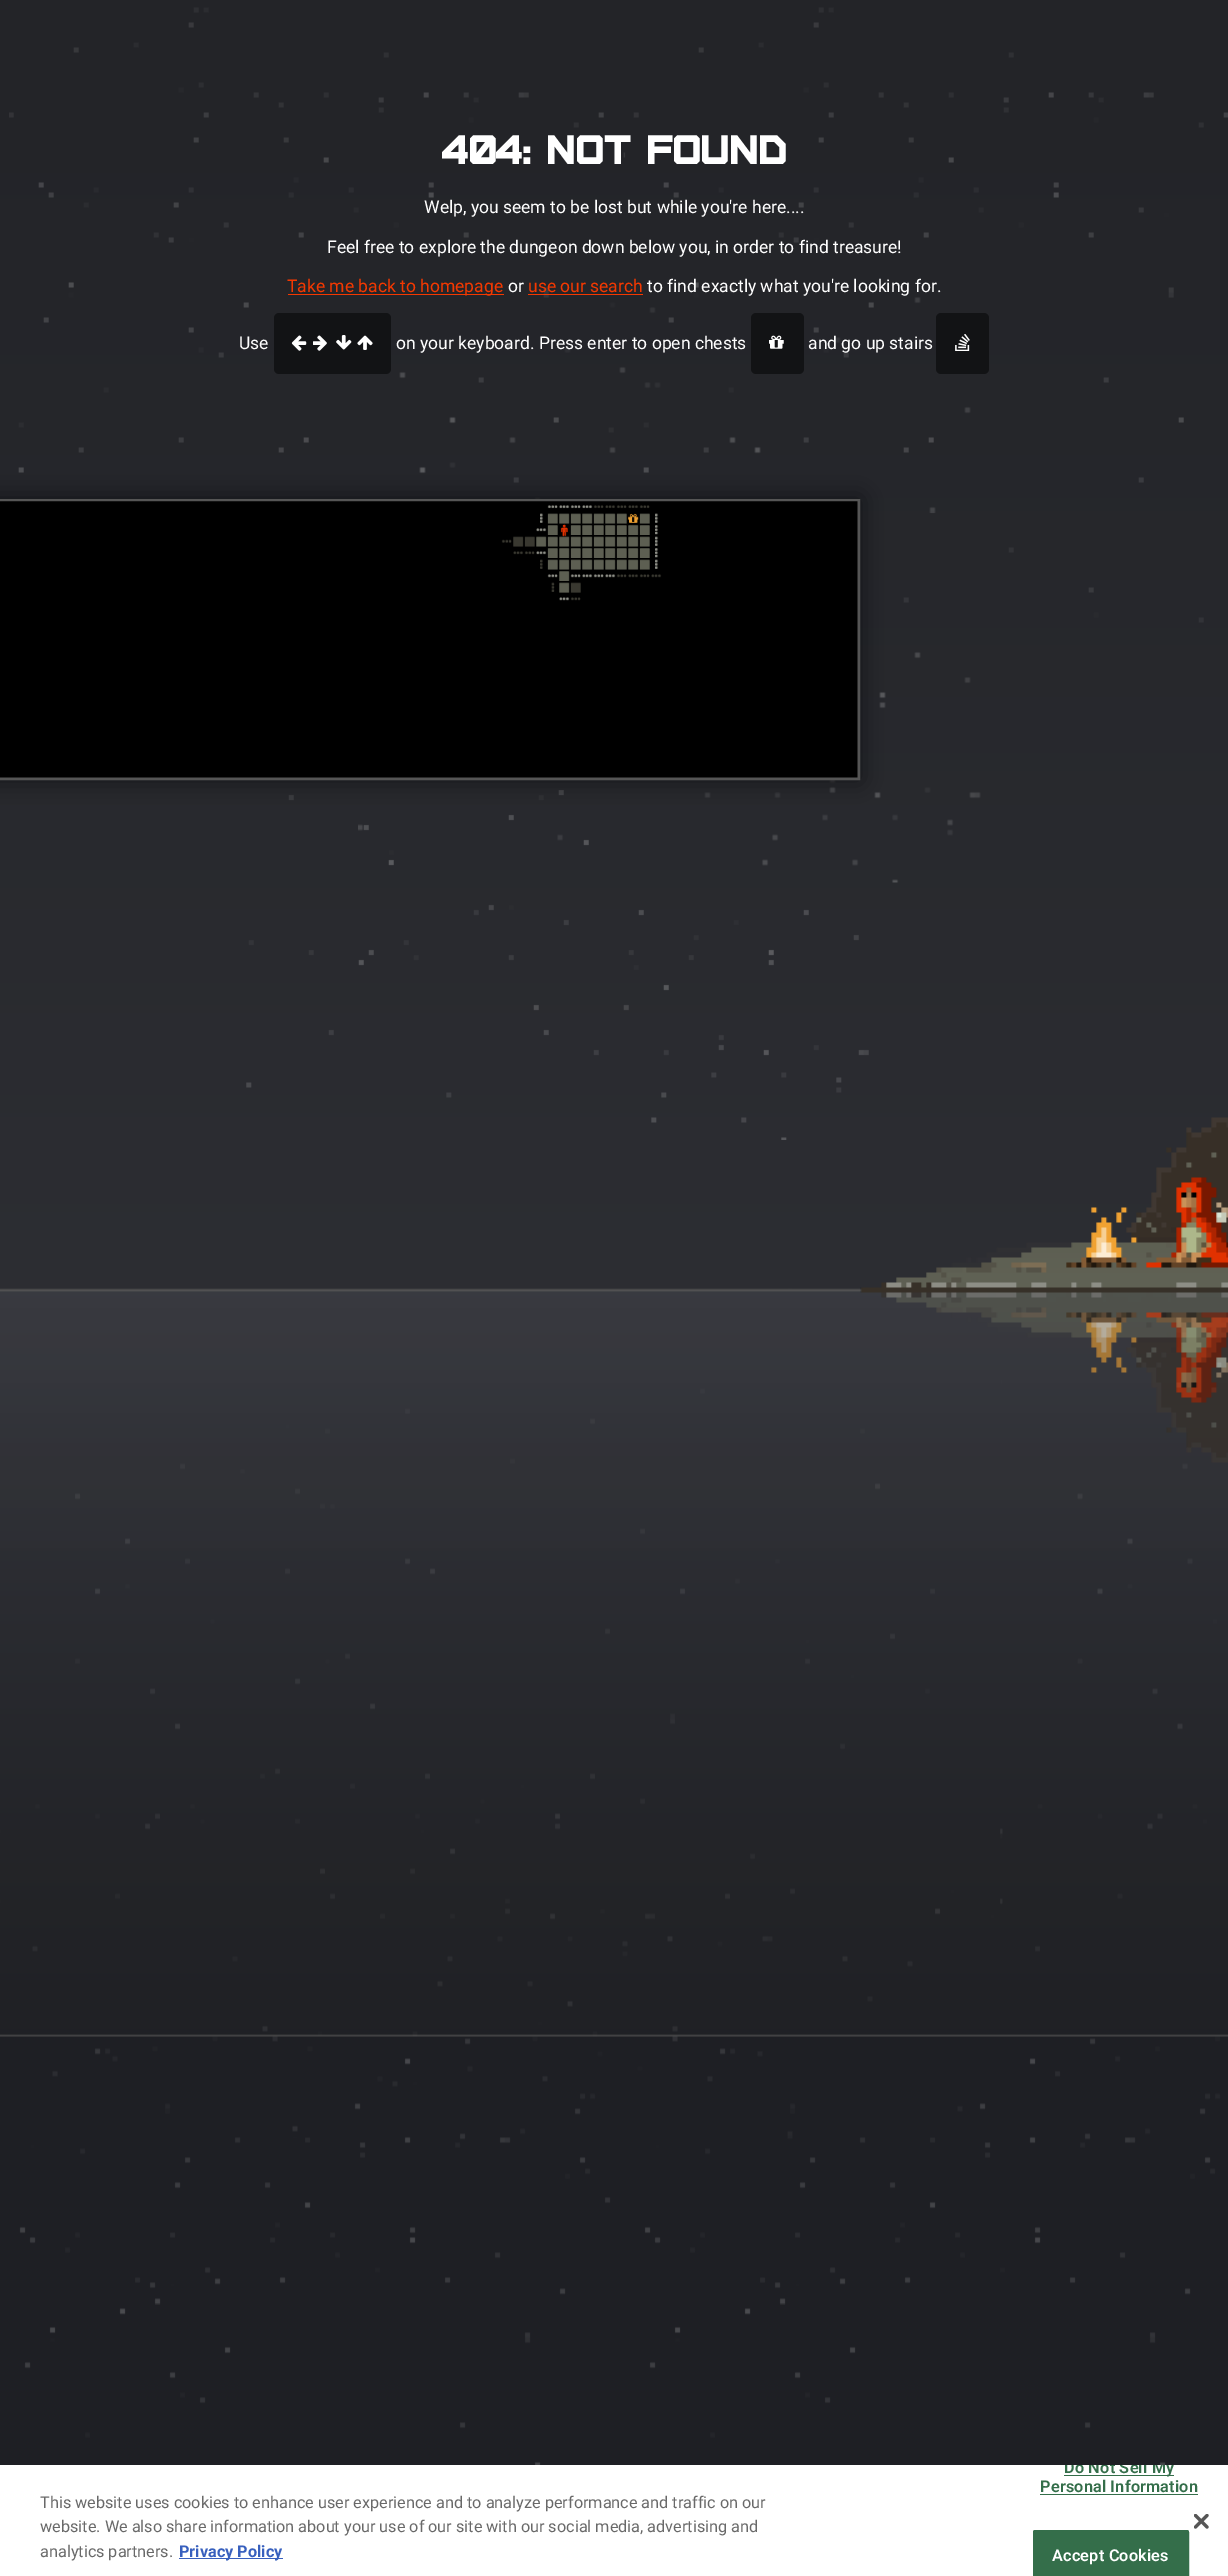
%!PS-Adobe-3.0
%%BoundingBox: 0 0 1228 2576
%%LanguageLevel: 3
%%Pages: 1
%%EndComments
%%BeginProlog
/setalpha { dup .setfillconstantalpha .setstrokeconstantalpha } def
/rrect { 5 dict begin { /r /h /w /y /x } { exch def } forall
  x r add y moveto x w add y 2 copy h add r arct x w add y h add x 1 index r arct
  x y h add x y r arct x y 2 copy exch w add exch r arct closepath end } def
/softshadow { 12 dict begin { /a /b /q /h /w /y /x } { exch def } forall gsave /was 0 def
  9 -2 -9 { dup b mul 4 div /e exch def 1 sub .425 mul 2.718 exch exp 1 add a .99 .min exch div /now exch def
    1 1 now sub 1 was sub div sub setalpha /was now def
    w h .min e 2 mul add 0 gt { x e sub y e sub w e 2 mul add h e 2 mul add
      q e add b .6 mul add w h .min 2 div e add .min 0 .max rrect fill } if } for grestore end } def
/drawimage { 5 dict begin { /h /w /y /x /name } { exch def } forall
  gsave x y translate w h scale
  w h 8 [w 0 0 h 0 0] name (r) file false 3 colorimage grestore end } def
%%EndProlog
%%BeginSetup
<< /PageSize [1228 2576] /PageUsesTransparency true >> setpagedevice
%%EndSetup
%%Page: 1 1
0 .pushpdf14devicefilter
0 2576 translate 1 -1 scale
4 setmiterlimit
0.137 0.141 0.157 setrgbcolor
0 0 1228 2576 rectfill
(images/1.raw) 0 5 1228 1284 drawimage
(images/3.raw) 358 287 623 596 drawimage
(images/2.raw) 9 7 1219 616 drawimage
(images/4.raw) 246 790 623 350 drawimage
0.118 0.122 0.141 setrgbcolor
0 1289 1228 1176 rectfill
(images/6.raw) 0 1288 1228 1177 drawimage
(images/5.raw) 860 1117 368 346 drawimage
0.957 0.22 0 setrgbcolor
288 294 216 1 rectfill
528 294 115 1 rectfill
0.071 0.075 0.082 setrgbcolor
274 313 117 61 5 rrect fill
(images/7.raw) 291 335 16 16 drawimage
(images/8.raw) 313 335 14 16 drawimage
(images/9.raw) 336 335 16 15 drawimage
(images/10.raw) 357 335 16 15 drawimage
751 313 53 61 5 rrect fill
(images/11.raw) 769 335 15 14 drawimage
936 313 53 61 5 rrect fill
(images/12.raw) 955 334 15 17 drawimage
0 setgray
-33 499 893 281 0 11 0.5 softshadow
0.333 setgray
3 setlinewidth
-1.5 500.5 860 278 rectstroke
(images/13.raw) 0 501 858 277 drawimage
1 setgray
0 2465 1228 111 rectfill
0.22 0.376 0.745 setrgbcolor
179 2558 104 1 rectfill
0.204 0.431 0.29 setrgbcolor
1064 2475 110 1 rectfill
1040 2494 158 1 rectfill
newpath 1035.5 2530 moveto 1186.5 2530 lineto 1188 2530 1189 2531 1189 2532.5 curveto 1189 2576 lineto 1033 2576 lineto 1033 2532.5 lineto 1033 2531 1034 2530 1035.5 2530 curveto closepath fill
1 setlinewidth
1033.5 2530.5 155 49 2 rrect stroke
(images/14.raw) 1194 2514 15 15 drawimage
/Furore-Bold [39.4 0 0 -39.4 0 0] selectfont
1 setgray
442 164 moveto (404: Not Found) show
/Roboto-Regular [17.5 0 0 -17.5 0 0] selectfont
424 213 moveto (Welp, you seem to be lost but while you're here....) show
327 253 moveto (Feel free to explore the dungeon down below you, in order to find treasure!) show
0.957 0.22 0 setrgbcolor
287 292 moveto (Take me back to homepage) show
1 setgray
508 292 moveto (or) show
0.957 0.22 0 setrgbcolor
528 292 moveto (use our search) show
1 setgray
647 292 moveto (to find exactly what you're looking for.) show
239 349 moveto (Use) show
396 349 moveto (on your keyboard. Press enter to open chests) show
808 349 moveto (and go up stairs) show
/Roboto-Regular [16.25 0 0 -16.25 0 0] selectfont
0.412 setgray
40 2508 moveto (This website uses cookies to enhance user experience and to analyze performance and traffic on our) show
40 2532 moveto (website. We also share information about your use of our site with our social media, advertising and) show
40 2557 moveto (analytics partners.) show
/Roboto-Bold [16.25 0 0 -16.25 0 0] selectfont
0.22 0.376 0.745 setrgbcolor
179 2557 moveto (Privacy Policy) show
gsave
0 2465 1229 111 rectclip
/Roboto-SemiBold [16.25 0 0 -16.25 0 0] selectfont
0.204 0.431 0.29 setrgbcolor
1064 2473 moveto 0.2 0 (Do Not Sell My) ashow
grestore
/Roboto-SemiBold [16.25 0 0 -16.25 0 0] selectfont
0.204 0.431 0.29 setrgbcolor
1040 2492 moveto 0.2 0 (Personal Information) ashow
1 setgray
1052 2561 moveto 0.2 0 (Accept Cookies) ashow
.poppdf14devicefilter showpage
%%EOF
